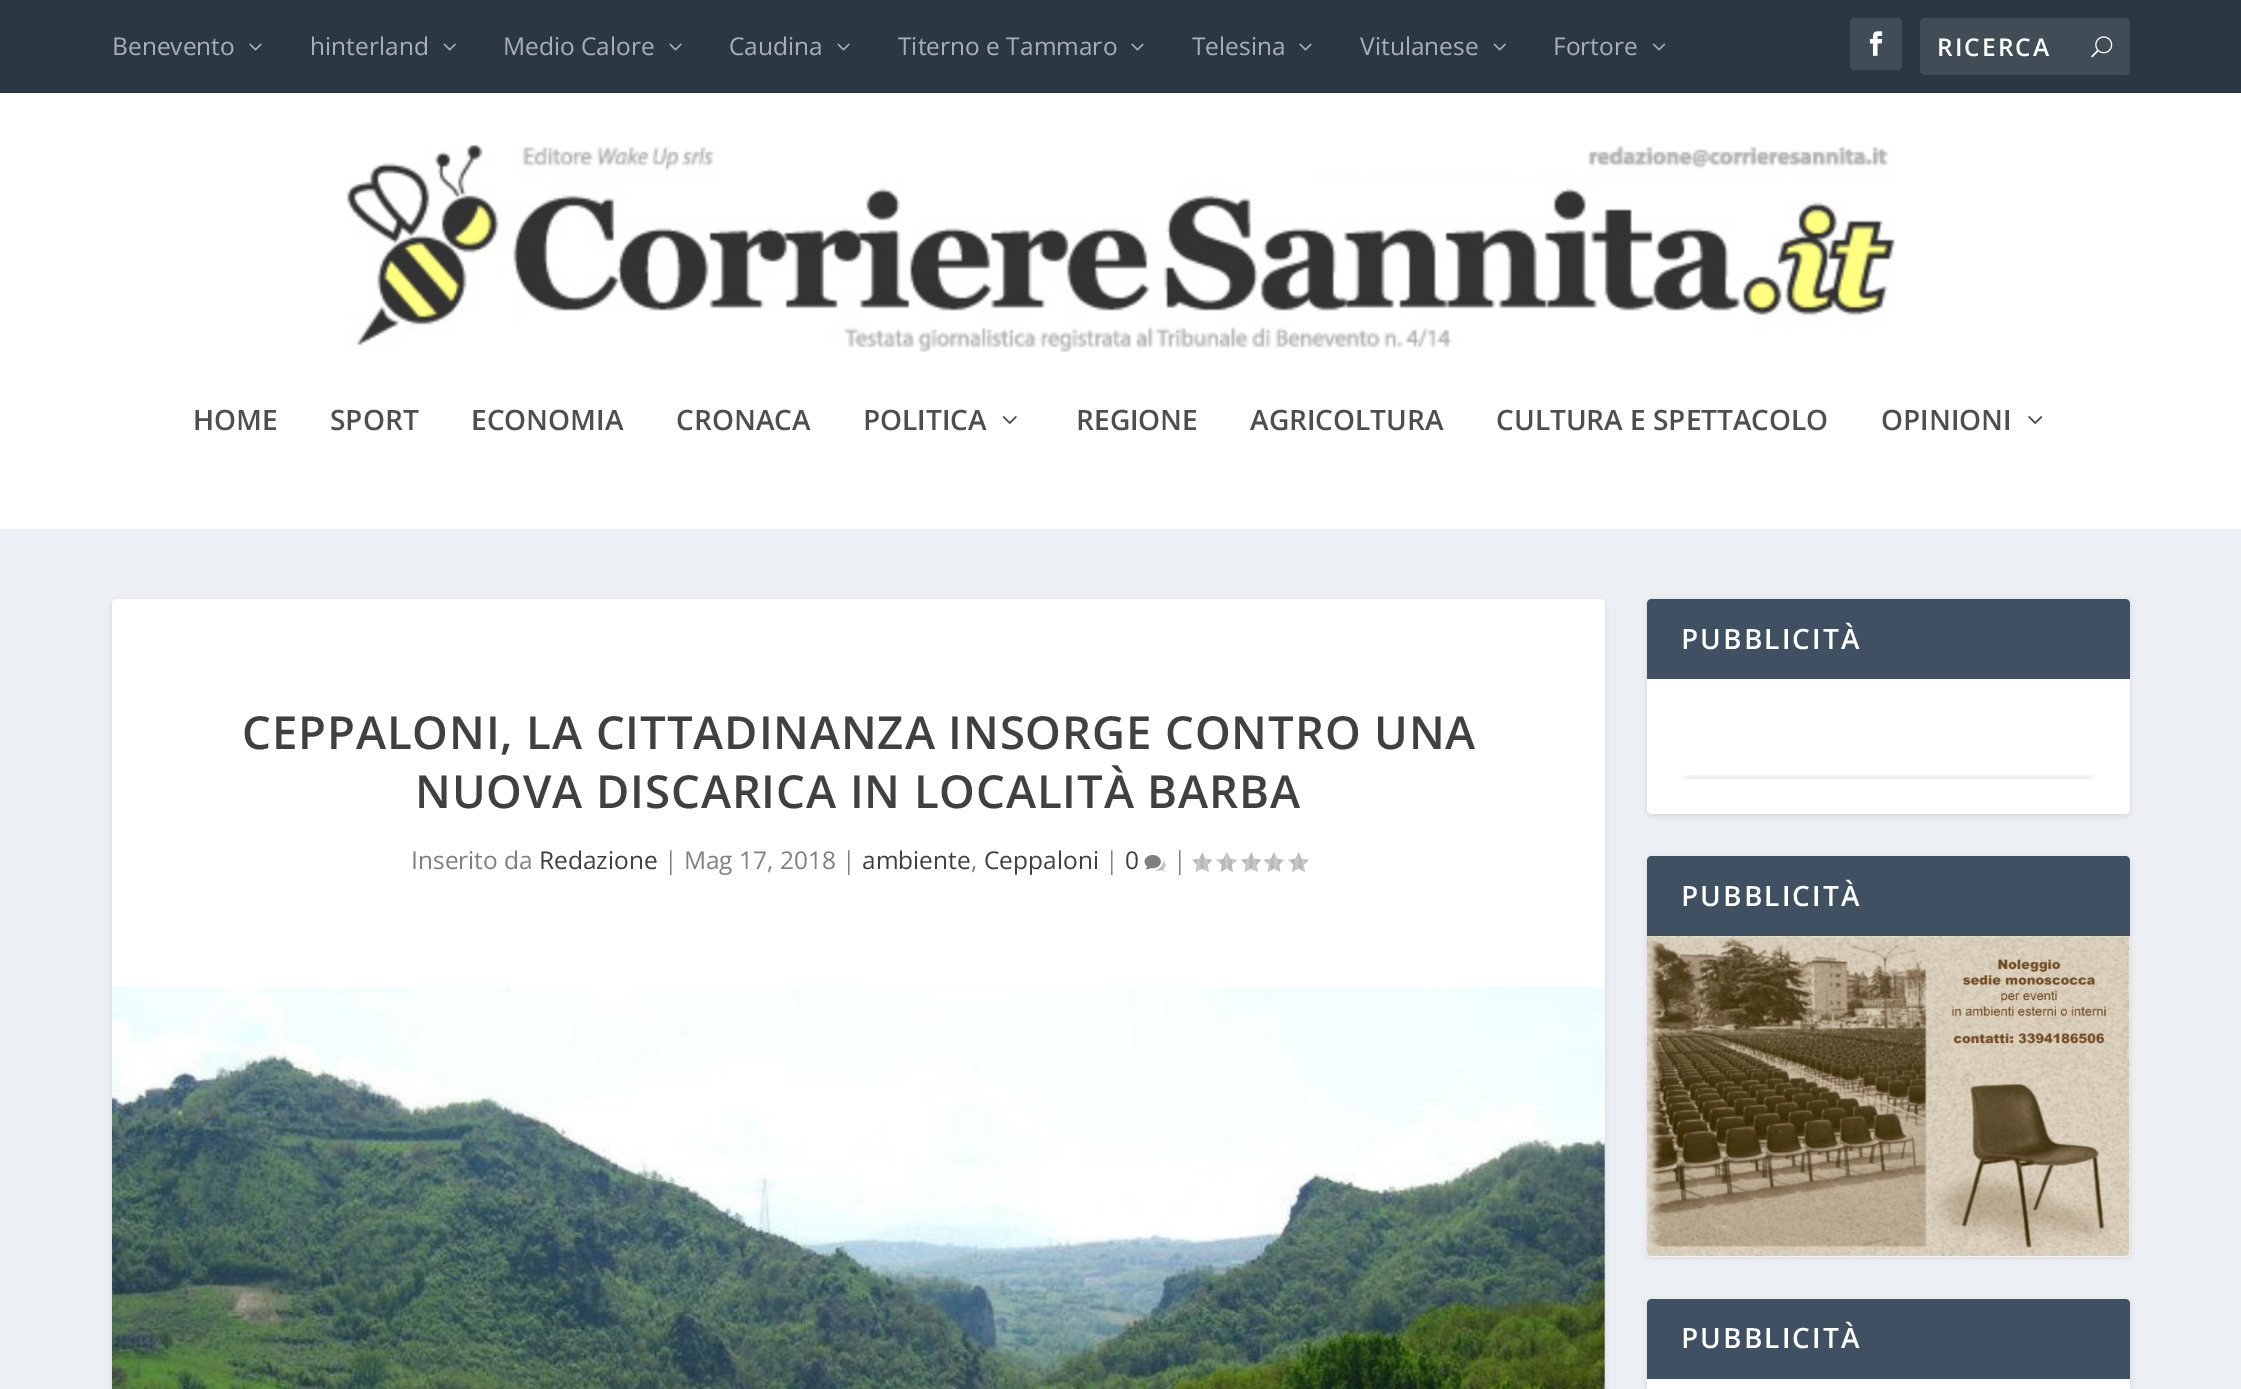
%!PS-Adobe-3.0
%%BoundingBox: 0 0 2241 1389
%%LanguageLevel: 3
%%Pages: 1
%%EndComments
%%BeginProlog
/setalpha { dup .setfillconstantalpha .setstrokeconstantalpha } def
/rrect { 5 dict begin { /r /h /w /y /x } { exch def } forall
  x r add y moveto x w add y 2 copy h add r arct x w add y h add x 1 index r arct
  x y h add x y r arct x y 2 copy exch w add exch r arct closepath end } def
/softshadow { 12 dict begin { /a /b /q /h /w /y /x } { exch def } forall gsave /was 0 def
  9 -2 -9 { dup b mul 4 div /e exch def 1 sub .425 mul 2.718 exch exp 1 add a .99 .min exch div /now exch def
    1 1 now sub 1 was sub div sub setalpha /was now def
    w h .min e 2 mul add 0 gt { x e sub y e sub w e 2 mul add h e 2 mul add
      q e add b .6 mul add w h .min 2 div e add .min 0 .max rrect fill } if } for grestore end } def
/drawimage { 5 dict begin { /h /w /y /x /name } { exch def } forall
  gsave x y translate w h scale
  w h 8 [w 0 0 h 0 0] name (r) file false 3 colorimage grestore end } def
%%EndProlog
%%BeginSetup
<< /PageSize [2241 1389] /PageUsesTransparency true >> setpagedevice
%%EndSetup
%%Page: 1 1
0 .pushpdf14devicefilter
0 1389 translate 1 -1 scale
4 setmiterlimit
0.925 0.941 0.961 setrgbcolor
0 0 2241 1389 rectfill
0.169 0.22 0.263 setrgbcolor
0 0 2241 93 rectfill
(images/1.raw) 249 43 13 8 drawimage
(images/2.raw) 443 43 13 8 drawimage
(images/1.raw) 669 43 13 8 drawimage
(images/1.raw) 837 43 13 8 drawimage
(images/1.raw) 1131 43 13 8 drawimage
(images/1.raw) 1299 43 13 8 drawimage
(images/2.raw) 1493 43 13 8 drawimage
(images/3.raw) 1652 43 14 8 drawimage
0.251 0.298 0.337 setrgbcolor
1850 18 52 52 5 rrect fill
(images/4.raw) 1869 31 14 25 drawimage
1920 18 210 57 5 rrect fill
(images/5.raw) 2091 36 22 22 drawimage
1 setgray
0 93 2241 436 rectfill
(images/6.raw) 346 144 1550 208 drawimage
(images/7.raw) 1002 416 15 8 drawimage
(images/8.raw) 2028 416 15 8 drawimage
0 setgray
112 600 1493 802 5 2.5 0.1 softshadow
1 setgray
112 599 1493 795 5 rrect fill
(images/9.raw) 1144 855 22 16 drawimage
(images/10.raw) 1192 852 21 20 drawimage
(images/11.raw) 1216 852 21 20 drawimage
(images/10.raw) 1241 852 21 20 drawimage
(images/12.raw) 1263 852 22 20 drawimage
(images/13.raw) 1288 852 21 20 drawimage
(images/14.raw) 112 987 1493 402 drawimage
0 setgray
1647 600 483 216 5 2.5 0.1 softshadow
1 setgray
1647 599 483 215 5 rrect fill
0.243 0.314 0.384 setrgbcolor
newpath 1652 599 moveto 2125 599 lineto 2128 599 2130 601 2130 604 curveto 2130 679 lineto 1647 679 lineto 1647 604 lineto 1647 601 1649 599 1652 599 curveto closepath fill
0 setgray
1647 858 483 400 5 2.5 0.1 softshadow
1 setgray
1647 856 483 401 5 rrect fill
0.243 0.314 0.384 setrgbcolor
newpath 1652 856 moveto 2125 856 lineto 2128 856 2130 858 2130 861 curveto 2130 936 lineto 1647 936 lineto 1647 861 lineto 1647 858 1649 856 1652 856 curveto closepath fill
(images/15.raw) 1646 936 484 321 drawimage
gsave
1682 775 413 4 rectclip
0.8 setgray
1682 779 413 290 9 4.5 1 softshadow
grestore
0 setgray
1647 1300 483 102 5 2.5 0.1 softshadow
1 setgray
1647 1299 483 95 5 rrect fill
0.243 0.314 0.384 setrgbcolor
newpath 1652 1299 moveto 2125 1299 lineto 2128 1299 2130 1301 2130 1304 curveto 2130 1379 lineto 1647 1379 lineto 1647 1304 lineto 1647 1301 1649 1299 1652 1299 curveto closepath fill
/OpenSans-Regular [24.5 0 0 -24.5 0 0] selectfont
0.667 0.686 0.706 setrgbcolor
112 55 moveto (Benevento) show
310 55 moveto (hinterland) show
503 55 moveto (Medio Calore) show
729 55 moveto (Caudina) show
898 55 moveto (Titerno e Tammaro) show
1192 55 moveto (Telesina) show
1360 55 moveto (Vitulanese) show
1553 55 moveto (Fortore) show
/OpenSans-SemiBold [24.5 0 0 -24.5 0 0] selectfont
1 setgray
1937 56 moveto 2.1 0 (RICERCA) ashow
/OpenSans-SemiBold [28 0 0 -28 0 0] selectfont
0.306 setgray
193 430 moveto (HOME) show
330 430 moveto (SPORT) show
471 430 moveto (ECONOMIA) show
676 430 moveto (CRONACA) show
863 430 moveto (POLITICA) show
1076 430 moveto (REGIONE) show
1250 430 moveto (AGRICOLTURA) show
1496 430 moveto (CULTURA E SPETTACOLO) show
1881 430 moveto (OPINIONI) show
/OpenSans-SemiBold [45.5 0 0 -45.5 0 0] selectfont
0.251 setgray
242 749 moveto 0.9 0 (CEPPALONI, LA CITTADINANZA INSORGE CONTRO UNA) ashow
415 808 moveto 0.9 0 (NUOVA DISCARICA IN LOCALITÀ BARBA) ashow
/OpenSans-Regular [24.5 0 0 -24.5 0 0] selectfont
0.502 setgray
411 869 moveto (Inserito da) show
0.251 setgray
539 869 moveto (Redazione) show
0.502 setgray
664 869 moveto (| Mag 17, 2018 |) show
0.251 setgray
862 869 moveto (ambiente) show
0.502 setgray
971 869 moveto (,) show
0.251 setgray
984 869 moveto (Ceppaloni) show
0.502 setgray
1105 869 moveto (|) show
0.251 setgray
1125 869 moveto (0) show
0.502 setgray
1173 869 moveto (|) show
/OpenSans-SemiBold [28 0 0 -28 0 0] selectfont
1 setgray
1681 649 moveto 2.1 0 (PUBBLICITÀ) ashow
1681 906 moveto 2.1 0 (PUBBLICITÀ) ashow
1681 1348 moveto 2.1 0 (PUBBLICITÀ) ashow
.poppdf14devicefilter showpage
%%EOF
